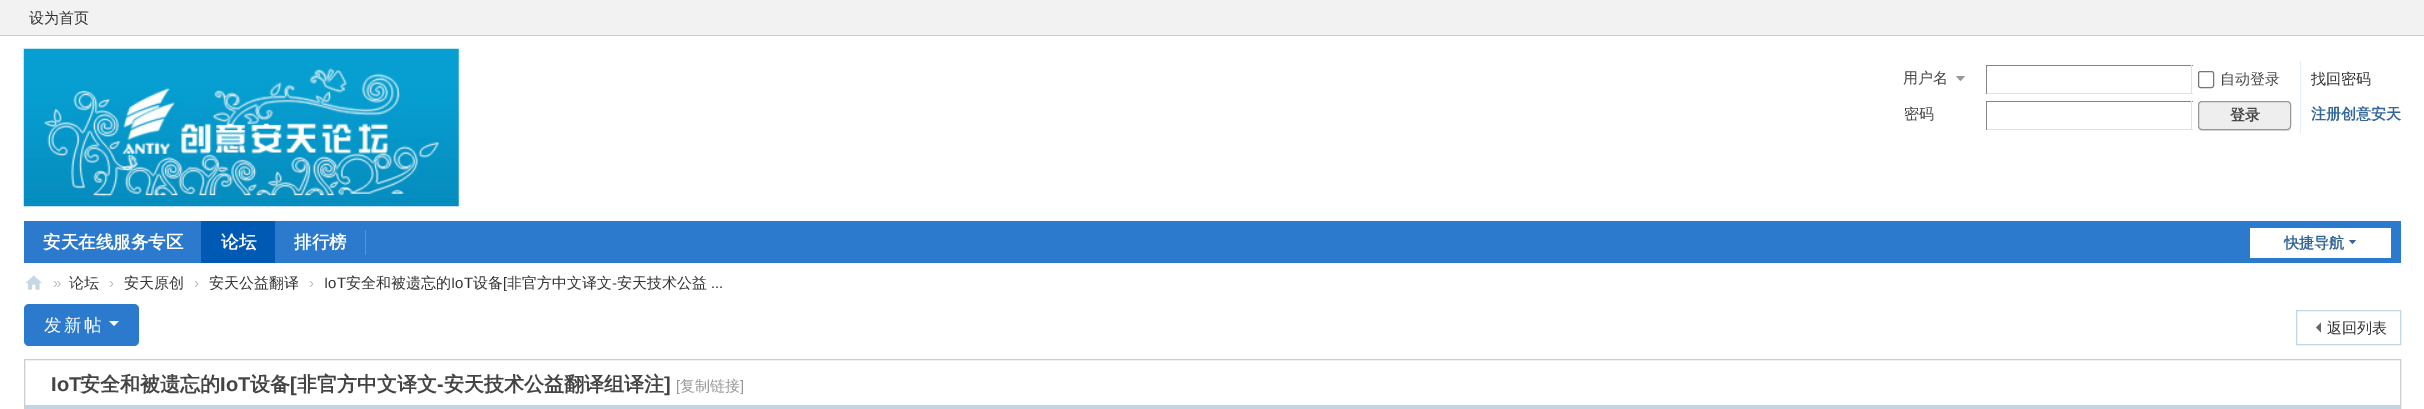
%!PS-Adobe-3.0
%%BoundingBox: 0 0 2424 409
%%LanguageLevel: 3
%%Pages: 1
%%EndComments
%%BeginProlog
/rrect { 5 dict begin { /r /h /w /y /x } { exch def } forall
  x r add y moveto x w add y 2 copy h add r arct x w add y h add x 1 index r arct
  x y h add x y r arct x y 2 copy exch w add exch r arct closepath end } def
/drawimage { 5 dict begin { /h /w /y /x /name } { exch def } forall
  gsave x y translate w h scale
  w h 8 [w 0 0 h 0 0] name (r) file false 3 colorimage grestore end } def
%%EndProlog
%%BeginSetup
<< /PageSize [2424 409] >> setpagedevice
%%EndSetup
%%Page: 1 1
0 409 translate 1 -1 scale
4 setmiterlimit
1 setgray
0 0 2424 409 rectfill
0.949 setgray
0 0 2424 35 rectfill
0.804 setgray
0 35 2424 1 rectfill
(images/1.raw) 23 48 436 159 drawimage
0.6 setgray
newpath 1965 76 moveto 1956 76 lineto 1960.5 81 lineto closepath fill
0.518 setgray
1986 65 207 1 rectfill
0.878 setgray
2191 65 1 29 rectfill
1986 93 207 1 rectfill
0.518 setgray
1986 65 1 29 rectfill
0.463 setgray
2198.5 71.5 15 16 2 rrect stroke
0.518 setgray
1986 101 207 1 rectfill
0.878 setgray
2191 101 1 29 rectfill
1986 129 207 1 rectfill
0.518 setgray
1986 101 1 29 rectfill
0.898 0.929 0.949 setrgbcolor
2300 61 1 72 rectfill
0.898 setgray
newpath 2198 129 moveto 2199 130 2200 131 2202 131 curveto 2287 131 lineto 2289 131 2291 130 2291 128 curveto 2290 129 2289 130 2288 130 curveto 2201 130 lineto closepath fill
0.933 setgray
2198.5 101.5 92 28 3.5 rrect gsave fill grestore
0.6 setgray
stroke
0.169 0.478 0.804 setrgbcolor
24 221 2377 42 rectfill
0 0.353 0.706 setrgbcolor
201 221 74 42 rectfill
0.333 0.584 0.843 setrgbcolor
365 230 1 25 rectfill
1 setgray
2250 228 141 30 rectfill
0.2 0.4 0.6 setrgbcolor
newpath 2349 240 moveto 2356 240 lineto 2352.5 244 lineto closepath fill
(images/2.raw) 25 275 17 15 drawimage
0.169 0.478 0.804 setrgbcolor
24 304 115 42 5 rrect fill
1 setgray
newpath 109 321 moveto 119 321 lineto 114 326 lineto closepath fill
0.761 0.835 0.89 setrgbcolor
2296.5 310.5 104 34 rectstroke
0.4 setgray
newpath 2321 322.5 moveto 2321 332.5 lineto 2316 327.5 lineto closepath fill
0.804 setgray
24.5 359.5 2376 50 rectstroke
0.761 0.835 0.89 setrgbcolor
25 405 2375 4 rectfill
/WenQuanYiZenHei-Medium [15 0 0 -15 0 0] selectfont
0.2 setgray
29 23 moveto (设为首页) show
0.267 setgray
1903 83 moveto (用户名) show
2220 84 moveto (自动登录) show
0.2 setgray
2311 84 moveto (找回密码) show
0.267 setgray
1904 119 moveto (密码) show
/WenQuanYiZenHei-Bold [15 0 0 -15 0 0] selectfont
2230 120 moveto (登录) show
0.2 0.4 0.6 setrgbcolor
2311 119 moveto (注册创意安天) show
/WenQuanYiZenHei-Bold [17.5 0 0 -17.5 0 0] selectfont
1 setgray
43 248 moveto (安天在线服务专区) show
221 248 moveto (论坛) show
294 248 moveto (排行榜) show
/WenQuanYiZenHei-Bold [15 0 0 -15 0 0] selectfont
0.2 0.4 0.6 setrgbcolor
2284 248 moveto (快捷导航) show
/LiberationSans-Regular [15 0 0 -15 0 0] selectfont
0.741 setgray
53 288 moveto (») show
/WenQuanYiZenHei-Medium [15 0 0 -15 0 0] selectfont
0.2 setgray
69 288 moveto (论坛) show
/LiberationSans-Regular [15 0 0 -15 0 0] selectfont
0.741 setgray
109 288 moveto (›) show
/WenQuanYiZenHei-Medium [15 0 0 -15 0 0] selectfont
0.2 setgray
124 288 moveto (安天原创) show
/LiberationSans-Regular [15 0 0 -15 0 0] selectfont
0.741 setgray
194 288 moveto (›) show
/WenQuanYiZenHei-Medium [15 0 0 -15 0 0] selectfont
0.2 setgray
209 288 moveto (安天公益翻译) show
/LiberationSans-Regular [15 0 0 -15 0 0] selectfont
0.741 setgray
309 288 moveto (›) show
0.2 setgray
324 288 moveto (IoT) show
/WenQuanYiZenHei-Medium [15 0 0 -15 0 0] selectfont
346 288 moveto (安全和被遗忘的) show
/LiberationSans-Regular [15 0 0 -15 0 0] selectfont
451 288 moveto (IoT) show
/WenQuanYiZenHei-Medium [15 0 0 -15 0 0] selectfont
473 288 moveto (设备) show
/LiberationSans-Regular [15 0 0 -15 0 0] selectfont
503 288 moveto ([) show
/WenQuanYiZenHei-Medium [15 0 0 -15 0 0] selectfont
507 288 moveto (非官方中文译文) show
/LiberationSans-Regular [15 0 0 -15 0 0] selectfont
612 288 moveto (-) show
/WenQuanYiZenHei-Medium [15 0 0 -15 0 0] selectfont
617 288 moveto (安天技术公益) show
/LiberationSans-Regular [15 0 0 -15 0 0] selectfont
711 288 moveto (...) show
/WenQuanYiZenHei-Medium [17.5 0 0 -17.5 0 0] selectfont
1 setgray
44 331 moveto 2.5 0 (发新帖) ashow
/WenQuanYiZenHei-Medium [15 0 0 -15 0 0] selectfont
0.2 setgray
2327 333 moveto (返回列表) show
/LiberationSans-Bold [20 0 0 -20 0 0] selectfont
0.267 setgray
51 391 moveto (IoT) show
/WenQuanYiZenHei-Bold [20 0 0 -20 0 0] selectfont
80 391 moveto (安全和被遗忘的) show
/LiberationSans-Bold [20 0 0 -20 0 0] selectfont
220 391 moveto (IoT) show
/WenQuanYiZenHei-Bold [20 0 0 -20 0 0] selectfont
250 391 moveto (设备) show
/LiberationSans-Bold [20 0 0 -20 0 0] selectfont
290 391 moveto ([) show
/WenQuanYiZenHei-Bold [20 0 0 -20 0 0] selectfont
297 391 moveto (非官方中文译文) show
/LiberationSans-Bold [20 0 0 -20 0 0] selectfont
437 391 moveto (-) show
/WenQuanYiZenHei-Bold [20 0 0 -20 0 0] selectfont
444 391 moveto (安天技术公益翻译组译注) show
/LiberationSans-Bold [20 0 0 -20 0 0] selectfont
664 391 moveto (]) show
/LiberationSans-Regular [15 0 0 -15 0 0] selectfont
0.6 setgray
676 391 moveto ([) show
/WenQuanYiZenHei-Medium [15 0 0 -15 0 0] selectfont
680 391 moveto (复制链接) show
/LiberationSans-Regular [15 0 0 -15 0 0] selectfont
740 391 moveto (]) show
showpage
%%EOF
